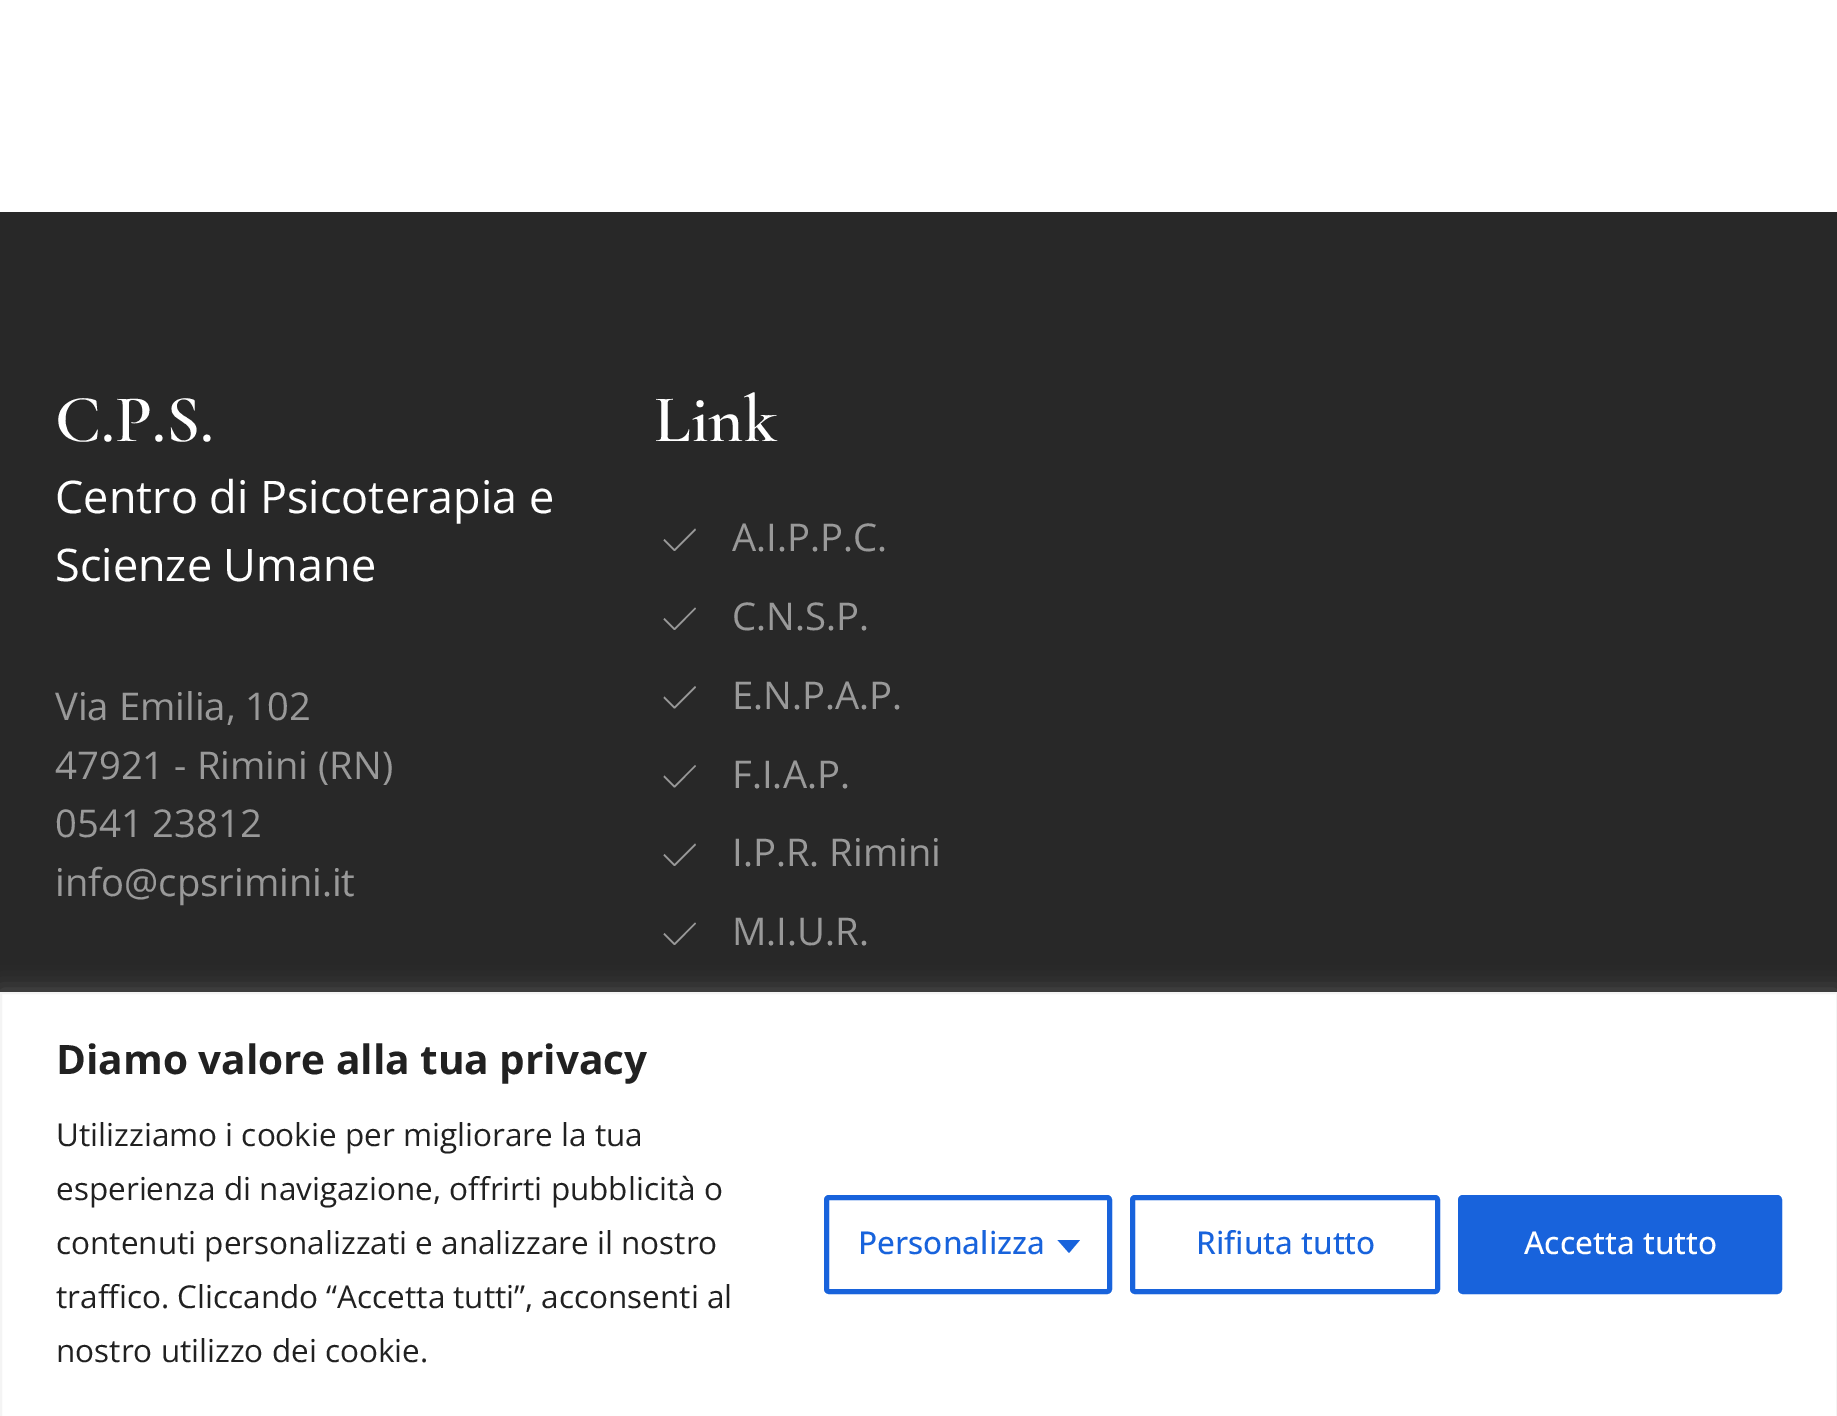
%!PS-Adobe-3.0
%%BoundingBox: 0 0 1837 1416
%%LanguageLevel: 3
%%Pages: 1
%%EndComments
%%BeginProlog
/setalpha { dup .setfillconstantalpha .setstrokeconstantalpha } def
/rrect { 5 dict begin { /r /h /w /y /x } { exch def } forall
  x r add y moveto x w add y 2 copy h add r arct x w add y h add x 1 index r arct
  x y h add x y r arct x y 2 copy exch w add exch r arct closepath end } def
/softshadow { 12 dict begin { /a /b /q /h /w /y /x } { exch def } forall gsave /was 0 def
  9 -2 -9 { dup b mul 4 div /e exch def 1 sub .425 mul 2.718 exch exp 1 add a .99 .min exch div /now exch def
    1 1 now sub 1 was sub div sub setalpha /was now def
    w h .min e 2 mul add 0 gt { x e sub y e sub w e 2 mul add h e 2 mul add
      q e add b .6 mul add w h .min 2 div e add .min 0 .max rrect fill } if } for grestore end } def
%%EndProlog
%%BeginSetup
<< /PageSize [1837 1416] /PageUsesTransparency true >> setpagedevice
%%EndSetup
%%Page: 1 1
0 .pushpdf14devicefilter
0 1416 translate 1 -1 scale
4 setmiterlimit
1 setgray
0 0 1837 1416 rectfill
0.157 setgray
0 212 1837 780 rectfill
0.6 setgray
newpath 664.5 539 moveto 674.5 549 lineto 695 528.5 lineto 696 530 lineto 675 551 lineto 674 551 lineto 663.5 540.5 lineto closepath fill
newpath 664.5 618 moveto 674.5 628 lineto 695 607.5 lineto 696 608.5 lineto 675 630 lineto 674 630 lineto 663.5 619.5 lineto closepath fill
newpath 664.5 696.5 moveto 674.5 706.5 lineto 695 686 lineto 696 687.5 lineto 675 708.5 lineto 674 708.5 lineto 663.5 698 lineto closepath fill
newpath 664.5 775.5 moveto 674.5 785.5 lineto 695 765 lineto 696 766 lineto 675 787.5 lineto 674 787.5 lineto 663.5 777 lineto closepath fill
newpath 664.5 854 moveto 674.5 864 lineto 695 843.5 lineto 696 845 lineto 675 866 lineto 674 866 lineto 663.5 855.5 lineto closepath fill
newpath 664.5 933 moveto 674.5 943 lineto 695 922.5 lineto 696 923.5 lineto 675 945 lineto 674 945 lineto 663.5 934.5 lineto closepath fill
0.675 0.671 0.671 setrgbcolor
0 990 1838 425 0 11 0.3 softshadow
1 setgray
newpath 1 993 moveto 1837 993 lineto 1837 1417 lineto 1 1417 lineto closepath gsave fill grestore
0.957 setgray
2 setlinewidth
stroke
0.094 0.388 0.863 setrgbcolor
5 setlinewidth
826.5 1197.5 283 94 2.5 rrect stroke
newpath 1057.5 1240 moveto 1080 1240 lineto 1069 1253 lineto closepath fill
1132.5 1197.5 305 94 2.5 rrect stroke
1460.5 1197.5 319 94 2.5 rrect gsave fill grestore
stroke
/CormorantGaramond-SemiBold [67.5 0 0 -67.5 0 0] selectfont
1 setgray
55 441 moveto (C.P.S.) show
/OpenSans-Regular [45 0 0 -45 0 0] selectfont
55 513 moveto (Centro di Psicoterapia e) show
55 581 moveto (Scienze Umane) show
/OpenSans-Regular [38.25 0 0 -38.25 0 0] selectfont
0.6 setgray
55 720 moveto (Via Emilia, 102) show
55 779 moveto (47921 - Rimini \(RN\)) show
55 837 moveto (0541 23812) show
55 896 moveto (info@cpsrimini.it) show
/CormorantGaramond-SemiBold [67.5 0 0 -67.5 0 0] selectfont
1 setgray
654 441 moveto (Link) show
/OpenSans-Regular [38.25 0 0 -38.25 0 0] selectfont
0.6 setgray
732 551 moveto (A.I.P.P.C.) show
732 630 moveto (C.N.S.P.) show
732 709 moveto (E.N.P.A.P.) show
732 788 moveto (F.I.A.P.) show
732 866 moveto (I.P.R. Rimini) show
732 945 moveto (M.I.U.R.) show
/OpenSans-Bold [40.5 0 0 -40.5 0 0] selectfont
0.129 setgray
56 1074 moveto (Diamo valore alla tua privacy) show
/OpenSans-Regular [31.5 0 0 -31.5 0 0] selectfont
56 1146 moveto (Utilizziamo i cookie per migliorare la tua) show
56 1200 moveto (esperienza di navigazione, offrirti pubblicità o) show
56 1254 moveto (contenuti personalizzati e analizzare il nostro) show
56 1308 moveto (traffico. Cliccando “Accetta tutti”, acconsenti al) show
56 1362 moveto (nostro utilizzo dei cookie.) show
/OpenSans-Medium [31.5 0 0 -31.5 0 0] selectfont
0.094 0.388 0.863 setrgbcolor
858 1254 moveto (Personalizza) show
1196 1254 moveto (Rifiuta tutto) show
1 setgray
1524 1254 moveto (Accetta tutto) show
.poppdf14devicefilter showpage
%%EOF
